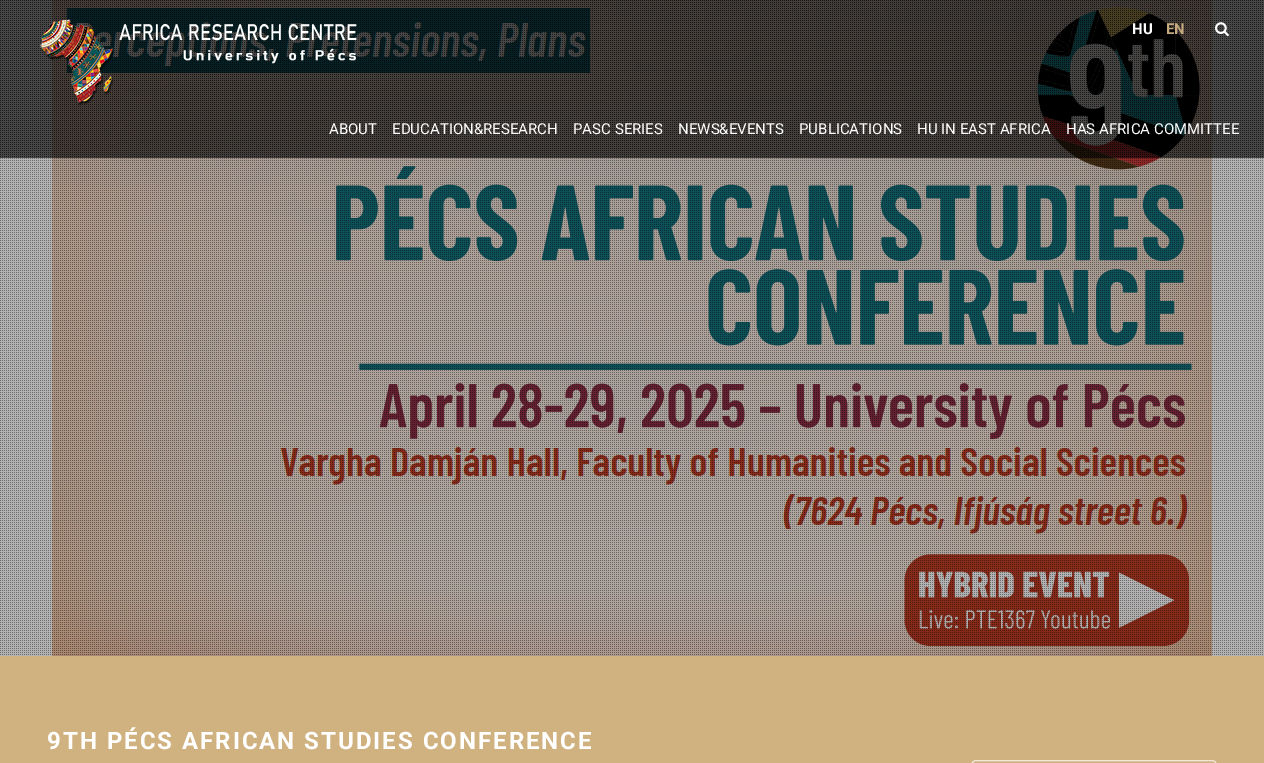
%!PS-Adobe-3.0
%%BoundingBox: 0 0 1264 763
%%LanguageLevel: 3
%%Pages: 1
%%EndComments
%%BeginProlog
/setalpha { dup .setfillconstantalpha .setstrokeconstantalpha } def
/rrect { 5 dict begin { /r /h /w /y /x } { exch def } forall
  x r add y moveto x w add y 2 copy h add r arct x w add y h add x 1 index r arct
  x y h add x y r arct x y 2 copy exch w add exch r arct closepath end } def
/drawimage { 5 dict begin { /h /w /y /x /name } { exch def } forall
  gsave x y translate w h scale
  w h 8 [w 0 0 h 0 0] name (r) file false 3 colorimage grestore end } def
%%EndProlog
%%BeginSetup
<< /PageSize [1264 763] /PageUsesTransparency true >> setpagedevice
%%EndSetup
%%Page: 1 1
0 .pushpdf14devicefilter
0 763 translate 1 -1 scale
4 setmiterlimit
0.702 setgray
0 0 1264 763 rectfill
(images/2.raw) 52 0 1160 656 drawimage
(images/1.raw) 0 0 1263 655 drawimage
0.6 setalpha
0 setgray
0 0 1264 158 rectfill
1 setalpha
(images/3.raw) 0 0 1263 157 drawimage
(images/4.raw) 40 19 317 87 drawimage
(images/5.raw) 1215 22 14 15 drawimage
0.816 0.698 0.506 setrgbcolor
0 656 1264 107 rectfill
0.945 0.91 0.851 setrgbcolor
971.5 760.5 245 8 4.5 rrect stroke
/Roboto-Bold [15 0 0 -15 0 0] selectfont
1 setgray
1132 34 moveto (HU) show
0.769 0.667 0.494 setrgbcolor
1166 34 moveto (EN) show
/Roboto-Regular [15 0 0 -15 0 0] selectfont
1 setgray
329 134 moveto (ABOUT) show
392 134 moveto (EDUCATION&RESEARCH) show
573 134 moveto (PASC SERIES) show
678 134 moveto (NEWS&EVENTS) show
799 134 moveto (PUBLICATIONS) show
917 134 moveto (HU IN EAST AFRICA) show
1066 134 moveto (HAS AFRICA COMMITTEE) show
/Roboto-Bold [24 0 0 -24 0 0] selectfont
47 749 moveto 2 0 (9TH PÉCS AFRICAN STUDIES CONFERENCE) ashow
.poppdf14devicefilter showpage
%%EOF
